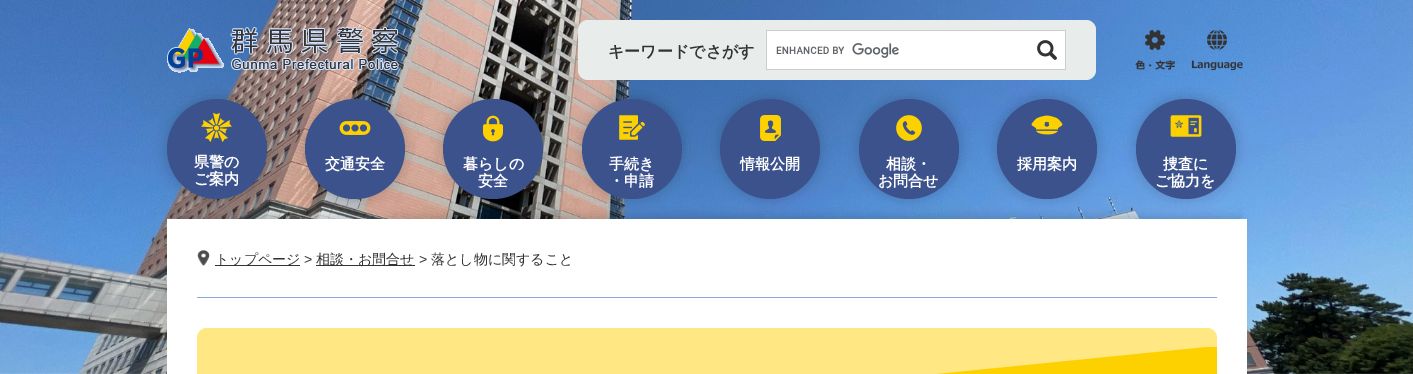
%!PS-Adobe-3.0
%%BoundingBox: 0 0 1413 374
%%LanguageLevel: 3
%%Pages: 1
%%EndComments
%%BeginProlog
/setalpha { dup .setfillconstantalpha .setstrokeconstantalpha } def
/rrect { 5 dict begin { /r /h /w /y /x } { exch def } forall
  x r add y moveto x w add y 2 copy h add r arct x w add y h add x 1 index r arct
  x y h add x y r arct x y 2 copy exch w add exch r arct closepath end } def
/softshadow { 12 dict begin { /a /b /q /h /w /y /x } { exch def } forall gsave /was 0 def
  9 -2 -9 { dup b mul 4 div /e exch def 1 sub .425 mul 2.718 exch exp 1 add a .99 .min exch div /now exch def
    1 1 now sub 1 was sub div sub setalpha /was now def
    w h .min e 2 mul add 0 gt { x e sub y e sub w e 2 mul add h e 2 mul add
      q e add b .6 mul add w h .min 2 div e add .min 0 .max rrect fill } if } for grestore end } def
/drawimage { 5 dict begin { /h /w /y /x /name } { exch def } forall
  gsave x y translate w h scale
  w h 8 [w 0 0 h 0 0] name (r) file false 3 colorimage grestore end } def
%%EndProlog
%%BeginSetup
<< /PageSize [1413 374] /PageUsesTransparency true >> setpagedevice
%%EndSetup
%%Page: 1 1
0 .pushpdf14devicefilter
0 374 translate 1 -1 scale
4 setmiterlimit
1 setgray
0 0 1413 374 rectfill
(images/1.raw) 0 0 1413 374 drawimage
(images/2.raw) 167 27 232 46 drawimage
0 setgray
579 95 106 106 53 5 0.12 softshadow
717 95 106 106 53 5 0.12 softshadow
856 95 106 106 53 5 0.12 softshadow
994 95 106 106 53 5 0.12 softshadow
0.91 0.929 0.922 setrgbcolor
578 20 518 60 10 rrect fill
1 setgray
767 31 298 38 rectfill
(images/3.raw) 776 43 123 15 drawimage
0.8 setgray
766 30 300 1 rectfill
766 69 264 1 rectfill
766 30 1 40 rectfill
(images/4.raw) 1037 40 20 20 drawimage
1065 30 1 40 rectfill
1030 69 36 1 rectfill
(images/5.raw) 1135 30 40 40 drawimage
(images/6.raw) 1191 30 52 41 drawimage
0 setgray
164 95 106 106 53 5 0.12 softshadow
0.235 0.322 0.553 setrgbcolor
newpath 217 149 50 0 360 arc closepath fill
(images/7.raw) 201 112 31 30 drawimage
0 setgray
302 95 106 106 53 5 0.12 softshadow
0.235 0.322 0.553 setrgbcolor
newpath 355 149 50 0 360 arc closepath fill
(images/8.raw) 339 121 32 14 drawimage
0 setgray
440 95 106 106 53 5 0.12 softshadow
0.235 0.322 0.553 setrgbcolor
newpath 493 149 50 0 360 arc closepath fill
(images/9.raw) 483 115 20 27 drawimage
newpath 632 149 50 0 360 arc closepath fill
(images/10.raw) 619 115 26 25 drawimage
newpath 770 149 50 0 360 arc closepath fill
(images/11.raw) 760 115 21 26 drawimage
newpath 909 149 50 0 360 arc closepath fill
(images/12.raw) 896 115 26 26 drawimage
newpath 1047 149 50 0 360 arc closepath fill
(images/13.raw) 1031 115 32 20 drawimage
0 setgray
1133 95 106 106 53 5 0.12 softshadow
0.235 0.322 0.553 setrgbcolor
newpath 1186 149 50 0 360 arc closepath fill
(images/14.raw) 1170 115 32 22 drawimage
0 setgray
173 215 1068 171 0 4 0.12 softshadow
1 setgray
167 219 1080 155 rectfill
(images/15.raw) 197 250 13 16 drawimage
0.529 0.663 0.871 setrgbcolor
197 297 1020 1 rectfill
0.2 setgray
215 265 85 1 rectfill
316 265 99 1 rectfill
1 0.906 0.514 setrgbcolor
197 328 1020 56 10 rrect fill
(images/16.raw) 936 347 281 27 drawimage
/WenQuanYiZenHei-Bold [16 0 0 -16 0 0] selectfont
0.2 setgray
608 57 moveto (キーワードでさがす) show
/WenQuanYiZenHei-Bold [15 0 0 -15 0 0] selectfont
1 setgray
194 167 moveto (県警の) show
194 184 moveto (ご案内) show
325 169 moveto (交通安全) show
463 169 moveto (暮らしの) show
478 186 moveto (安全) show
609 169 moveto (手続き) show
609 186 moveto (・申請) show
740 169 moveto (情報公開) show
886 169 moveto (相談・) show
878 186 moveto (お問合せ) show
1017 169 moveto (採用案内) show
1163 169 moveto (捜査に) show
1155 186 moveto (ご協力を) show
/WenQuanYiZenHei-Medium [14 0 0 -14 0 0] selectfont
0.2 setgray
215 264 moveto (トップページ) show
/LiberationSans-Regular [14 0 0 -14 0 0] selectfont
304 264 moveto (>) show
/WenQuanYiZenHei-Medium [14 0 0 -14 0 0] selectfont
316 264 moveto (相談・お問合せ) show
/LiberationSans-Regular [14 0 0 -14 0 0] selectfont
419 264 moveto (>) show
/WenQuanYiZenHei-Medium [14 0 0 -14 0 0] selectfont
431 264 moveto (落とし物に関すること) show
.poppdf14devicefilter showpage
%%EOF
